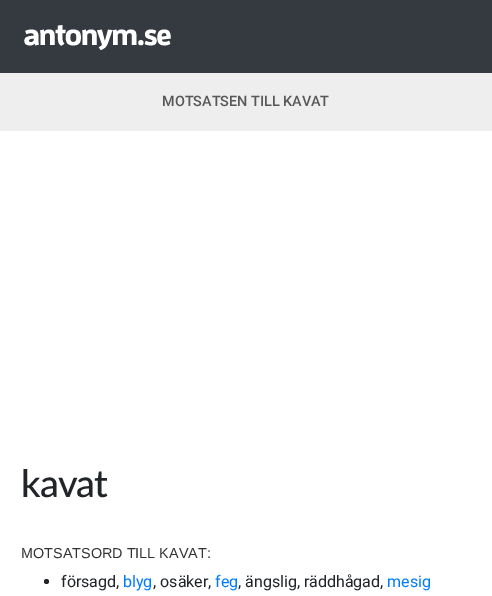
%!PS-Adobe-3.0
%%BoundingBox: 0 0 492 596
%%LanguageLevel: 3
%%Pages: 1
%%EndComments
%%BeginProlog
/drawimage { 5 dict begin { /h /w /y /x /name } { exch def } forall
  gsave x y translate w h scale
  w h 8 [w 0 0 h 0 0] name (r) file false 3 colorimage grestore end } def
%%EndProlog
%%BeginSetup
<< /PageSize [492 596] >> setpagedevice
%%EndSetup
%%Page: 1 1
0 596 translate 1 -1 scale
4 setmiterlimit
1 setgray
0 0 492 596 rectfill
0.204 0.227 0.251 setrgbcolor
0 0 492 73 rectfill
(images/1.raw) 24 25 147 25 drawimage
0.933 setgray
0 73 492 58 rectfill
0.129 0.145 0.161 setrgbcolor
newpath 46.5 581.5 2.5 0 360 arc closepath fill
/Roboto-Medium [14.4 0 0 -14.4 0 0] selectfont
0.349 0.341 0.345 setrgbcolor
162 106 moveto (MOTSATSEN TILL KAVAT) show
/Lato-Medium [38 0 0 -38 0 0] selectfont
0.129 0.145 0.161 setrgbcolor
21 497 moveto -1 0 (kavat) ashow
/LiberationSans-Regular [14.4 0 0 -14.4 0 0] selectfont
0.2 setgray
21 558 moveto (MOTSATSORD TILL KAVAT:) show
/Roboto-Regular [16 0 0 -16 0 0] selectfont
0.129 0.145 0.161 setrgbcolor
61 587 moveto (försagd,) show
0 0.482 1 setrgbcolor
123 587 moveto (blyg) show
0.129 0.145 0.161 setrgbcolor
153 587 moveto (, osäker,) show
0 0.482 1 setrgbcolor
215 587 moveto (feg) show
0.129 0.145 0.161 setrgbcolor
238 587 moveto (, ängslig, räddhågad,) show
0 0.482 1 setrgbcolor
387 587 moveto (mesig) show
showpage
%%EOF
